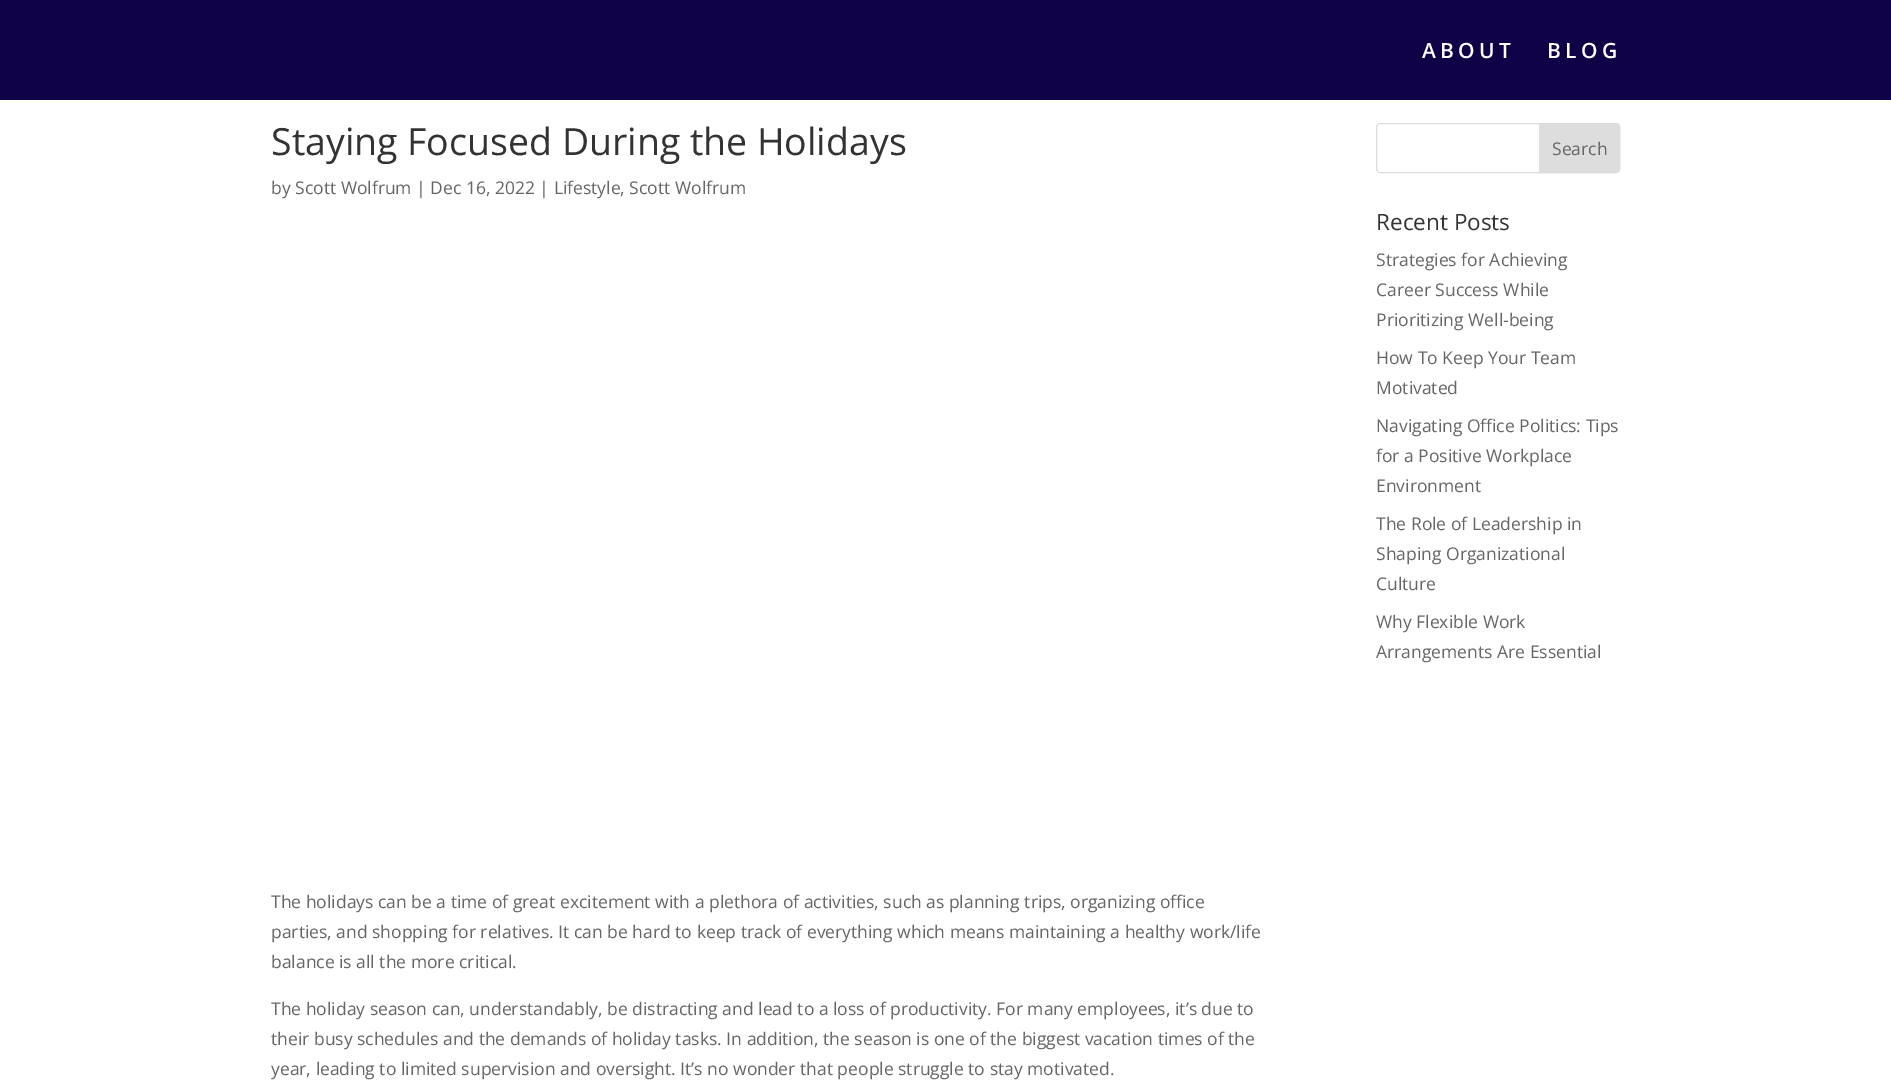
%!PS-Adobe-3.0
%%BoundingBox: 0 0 1891 1089
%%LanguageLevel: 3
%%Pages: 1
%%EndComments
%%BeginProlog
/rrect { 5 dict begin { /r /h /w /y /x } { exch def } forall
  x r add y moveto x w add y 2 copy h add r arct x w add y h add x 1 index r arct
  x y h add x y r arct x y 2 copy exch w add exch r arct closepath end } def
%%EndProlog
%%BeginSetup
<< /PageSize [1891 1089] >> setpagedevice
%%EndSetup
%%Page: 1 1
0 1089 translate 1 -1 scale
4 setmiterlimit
1 setgray
0 0 1891 1089 rectfill
0.059 0.008 0.275 setrgbcolor
0 0 1891 100 rectfill
0.867 setgray
1376.5 123.5 243 49 3.5 rrect stroke
newpath 1539.5 123.5 moveto 1616 123.5 lineto 1618 123.5 1619.5 125 1619.5 127 curveto 1619.5 169 lineto 1619.5 171 1618 172.5 1616 172.5 curveto 1539.5 172.5 lineto closepath gsave fill grestore
stroke
/OpenSans-SemiBold [21 0 0 -21 0 0] selectfont
1 setgray
1422 58 moveto 4.25 0 (ABOUT) ashow
1547 58 moveto 4.25 0 (BLOG) ashow
/OpenSans-Regular [37.5 0 0 -37.5 0 0] selectfont
0.2 setgray
271 155 moveto (Staying Focused During the Holidays) show
/OpenSans-Regular [17.5 0 0 -17.5 0 0] selectfont
0.4 setgray
271 194 moveto (by Scott Wolfrum | Dec 16, 2022 | Lifestyle, Scott Wolfrum) show
271 908 moveto (The holidays can be a time of great excitement with a plethora of activities, such as planning trips, organizing office) show
271 938 moveto (parties, and shopping for relatives. It can be hard to keep track of everything which means maintaining a healthy work/life) show
271 968 moveto (balance is all the more critical.) show
271 1015 moveto (The holiday season can, understandably, be distracting and lead to a loss of productivity. For many employees, it’s due to) show
271 1045 moveto (their busy schedules and the demands of holiday tasks. In addition, the season is one of the biggest vacation times of the) show
271 1075 moveto (year, leading to limited supervision and oversight. It’s no wonder that people struggle to stay motivated.) show
1552 155 moveto (Search) show
/OpenSans-Regular [22.5 0 0 -22.5 0 0] selectfont
0.2 setgray
1376 230 moveto (Recent Posts) show
/OpenSans-Regular [17.5 0 0 -17.5 0 0] selectfont
0.4 setgray
1376 266 moveto (Strategies for Achieving) show
1376 296 moveto (Career Success While) show
1376 326 moveto (Prioritizing Well-being) show
1376 364 moveto (How To Keep Your Team) show
1376 394 moveto (Motivated) show
1376 432 moveto (Navigating Office Politics: Tips) show
1376 462 moveto (for a Positive Workplace) show
1376 492 moveto (Environment) show
1376 530 moveto (The Role of Leadership in) show
1376 560 moveto (Shaping Organizational) show
1376 590 moveto (Culture) show
1376 628 moveto (Why Flexible Work) show
1376 658 moveto (Arrangements Are Essential) show
showpage
%%EOF
